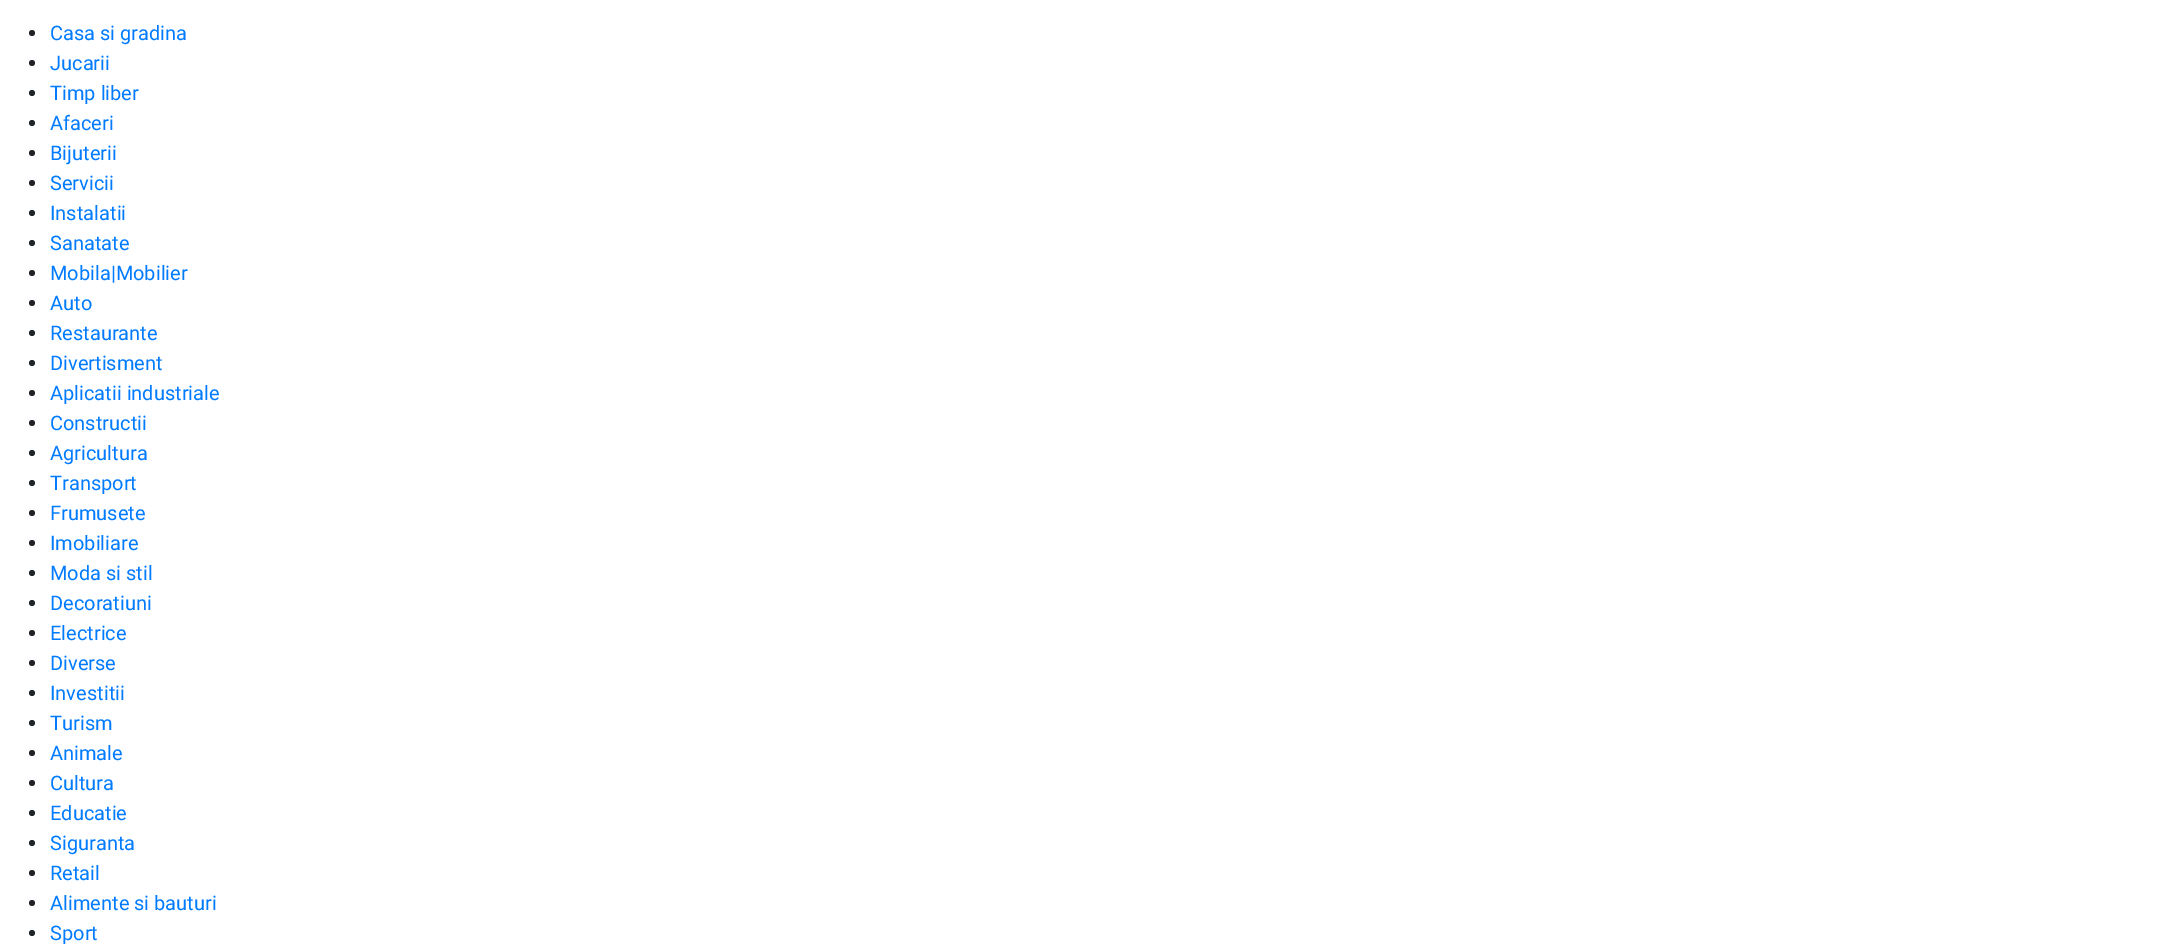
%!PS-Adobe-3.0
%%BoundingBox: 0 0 2161 950
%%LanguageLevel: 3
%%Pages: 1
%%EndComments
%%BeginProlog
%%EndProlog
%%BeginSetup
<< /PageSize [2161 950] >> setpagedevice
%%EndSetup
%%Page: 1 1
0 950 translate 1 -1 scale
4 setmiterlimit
1 setgray
0 0 2161 950 rectfill
0.129 0.145 0.161 setrgbcolor
newpath 32 33 3 0 360 arc closepath fill
newpath 32 63 3 0 360 arc closepath fill
newpath 32 93 3 0 360 arc closepath fill
newpath 32 123 3 0 360 arc closepath fill
newpath 32 153 3 0 360 arc closepath fill
newpath 32 183 3 0 360 arc closepath fill
newpath 32 213 3 0 360 arc closepath fill
newpath 32 243 3 0 360 arc closepath fill
newpath 32 273 3 0 360 arc closepath fill
newpath 32 303 3 0 360 arc closepath fill
newpath 32 333 3 0 360 arc closepath fill
newpath 32 363 3 0 360 arc closepath fill
newpath 32 393 3 0 360 arc closepath fill
newpath 32 423 3 0 360 arc closepath fill
newpath 32 453 3 0 360 arc closepath fill
newpath 32 483 3 0 360 arc closepath fill
newpath 32 513 3 0 360 arc closepath fill
newpath 32 543 3 0 360 arc closepath fill
newpath 32 573 3 0 360 arc closepath fill
newpath 32 603 3 0 360 arc closepath fill
newpath 32 633 3 0 360 arc closepath fill
newpath 32 663 3 0 360 arc closepath fill
newpath 32 693 3 0 360 arc closepath fill
newpath 32 723 3 0 360 arc closepath fill
newpath 32 753 3 0 360 arc closepath fill
newpath 32 783 3 0 360 arc closepath fill
newpath 32 813 3 0 360 arc closepath fill
newpath 32 843 3 0 360 arc closepath fill
newpath 32 873 3 0 360 arc closepath fill
newpath 32 903 3 0 360 arc closepath fill
newpath 32 933 3 0 360 arc closepath fill
/Roboto-Regular [20 0 0 -20 0 0] selectfont
0 0.482 1 setrgbcolor
50 40 moveto (Casa si gradina) show
50 70 moveto (Jucarii) show
50 100 moveto (Timp liber) show
50 130 moveto (Afaceri) show
50 160 moveto (Bijuterii) show
50 190 moveto (Servicii) show
50 220 moveto (Instalatii) show
50 250 moveto (Sanatate) show
50 280 moveto (Mobila|Mobilier) show
50 310 moveto (Auto) show
50 340 moveto (Restaurante) show
50 370 moveto (Divertisment) show
50 400 moveto (Aplicatii industriale) show
50 430 moveto (Constructii) show
50 460 moveto (Agricultura) show
50 490 moveto (Transport) show
50 520 moveto (Frumusete) show
50 550 moveto (Imobiliare) show
50 580 moveto (Moda si stil) show
50 610 moveto (Decoratiuni) show
50 640 moveto (Electrice) show
50 670 moveto (Diverse) show
50 700 moveto (Investitii) show
50 730 moveto (Turism) show
50 760 moveto (Animale) show
50 790 moveto (Cultura) show
50 820 moveto (Educatie) show
50 850 moveto (Siguranta) show
50 880 moveto (Retail) show
50 910 moveto (Alimente si bauturi) show
50 940 moveto (Sport) show
showpage
%%EOF
